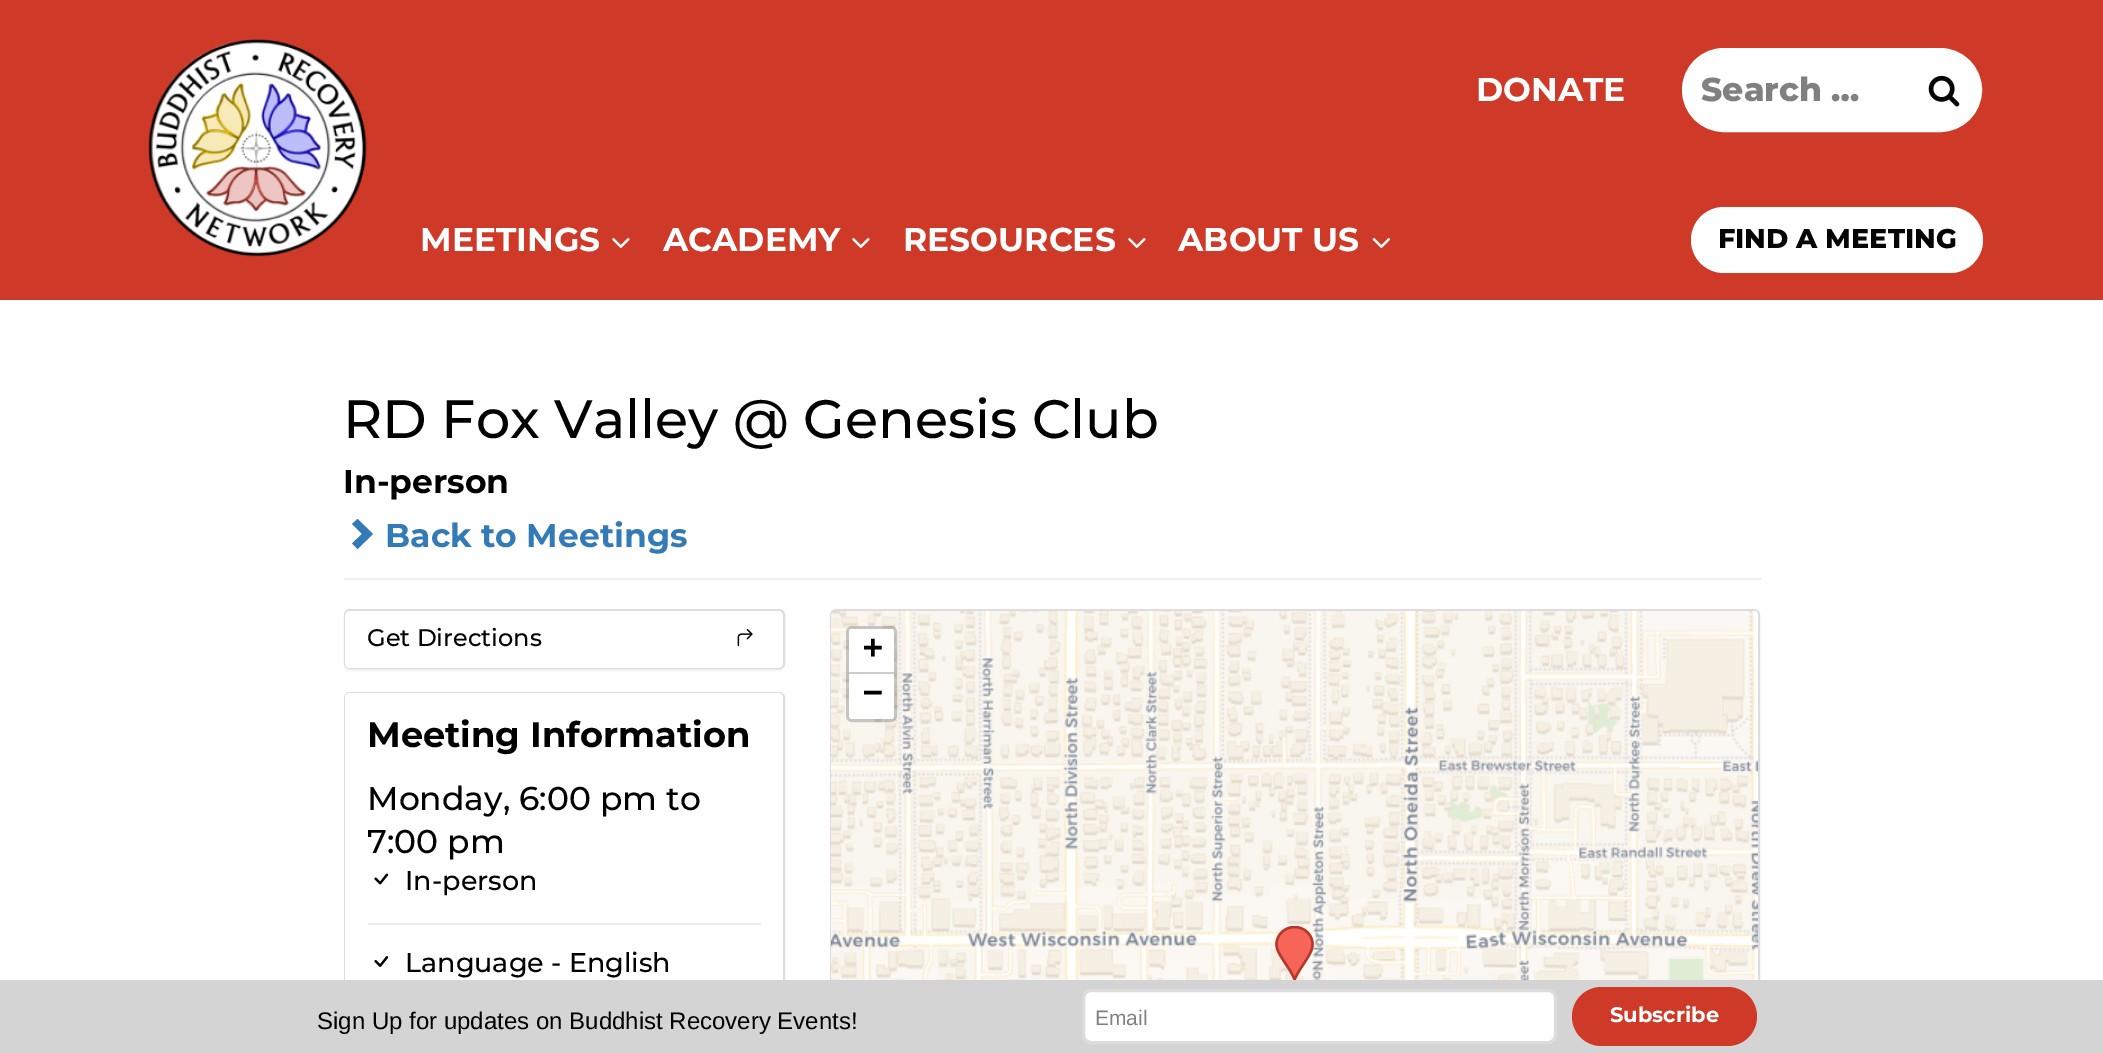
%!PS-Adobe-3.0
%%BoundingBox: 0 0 2103 1053
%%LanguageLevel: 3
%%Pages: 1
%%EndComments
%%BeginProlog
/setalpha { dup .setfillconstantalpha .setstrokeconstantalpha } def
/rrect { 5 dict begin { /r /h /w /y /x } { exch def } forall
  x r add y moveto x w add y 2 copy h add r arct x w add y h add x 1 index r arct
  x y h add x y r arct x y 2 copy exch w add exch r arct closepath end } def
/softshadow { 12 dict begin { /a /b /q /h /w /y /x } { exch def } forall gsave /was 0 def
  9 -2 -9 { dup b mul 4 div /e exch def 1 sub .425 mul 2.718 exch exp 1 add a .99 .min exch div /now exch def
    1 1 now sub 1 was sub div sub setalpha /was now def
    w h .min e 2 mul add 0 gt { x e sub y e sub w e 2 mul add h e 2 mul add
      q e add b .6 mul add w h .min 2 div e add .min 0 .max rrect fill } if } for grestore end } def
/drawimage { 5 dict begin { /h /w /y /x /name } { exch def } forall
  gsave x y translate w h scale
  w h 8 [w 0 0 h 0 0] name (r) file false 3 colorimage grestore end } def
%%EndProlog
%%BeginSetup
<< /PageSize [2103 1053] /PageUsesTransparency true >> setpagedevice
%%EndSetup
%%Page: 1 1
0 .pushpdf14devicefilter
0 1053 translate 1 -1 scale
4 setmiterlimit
1 setgray
0 0 2103 1053 rectfill
0.812 0.227 0.157 setrgbcolor
0 0 2103 300 rectfill
1 setgray
1683 49 298 82 41 rrect gsave fill grestore
2 setlinewidth
stroke
(images/1.raw) 1928 75 32 32 drawimage
(images/2.raw) 148 39 219 218 drawimage
(images/3.raw) 612 238 18 10 drawimage
(images/3.raw) 852 238 18 10 drawimage
(images/3.raw) 1128 238 18 10 drawimage
(images/4.raw) 1372 238 18 10 drawimage
1691 207 292 66 33 rrect fill
(images/5.raw) 1337 670 385 310 drawimage
0.933 setgray
344 578 1417 2 rectfill
0.2 0.478 0.718 setrgbcolor
newpath 373 534 moveto 357.5 549 lineto 352 543.5 lineto 362 534 lineto 352 524 lineto 357.5 519 lineto closepath fill
0 setgray
344 611 441 60 6 1 0.05 softshadow
1 setgray
345 610 439 58 5 rrect gsave fill grestore
0.867 setgray
stroke
1 setgray
345 611 438 57 5 rrect fill
(images/6.raw) 737 628 16 19 drawimage
0.867 setgray
345 693 439 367 5 rrect stroke
1 setgray
newpath 350 693 moveto 778 693 lineto 781 693 783 695 783 698 curveto 783 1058 lineto 345 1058 lineto 345 698 lineto 345 695 347 693 350 693 curveto closepath fill
(images/7.raw) 374 873 15 12 drawimage
0.933 setgray
368 923 393 2 rectfill
(images/8.raw) 374 956 15 11 drawimage
0.867 setgray
831 610 928 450 5 rrect stroke
(images/14.raw) 954 958 384 22 drawimage
(images/10.raw) 954 611 384 348 drawimage
(images/13.raw) 831 958 124 22 drawimage
(images/9.raw) 831 611 124 348 drawimage
(images/15.raw) 1338 958 384 22 drawimage
(images/11.raw) 1338 611 384 348 drawimage
(images/12.raw) 1722 611 36 348 drawimage
(images/16.raw) 1722 959 36 21 drawimage
(images/17.raw) 1275 926 39 54 drawimage
0.2 setalpha
0 setgray
3 setlinewidth
847.5 627.5 48 93 4.5 rrect stroke
1 setalpha
1 setgray
newpath 852 629 moveto 891 629 lineto 892.5 629 894 630.5 894 632 curveto 894 674 lineto 849 674 lineto 849 632 lineto 849 630.5 850.5 629 852 629 curveto closepath fill
0.8 setgray
849 672 45 2 rectfill
1 setgray
newpath 849 674 moveto 894 674 lineto 894 716 lineto 894 717.5 892.5 719 891 719 curveto 852 719 lineto 850.5 719 849 717.5 849 716 curveto closepath fill
0.831 setgray
0 980 2103 73 rectfill
1 setgray
1083.5 990.5 472 52 7.5 rrect gsave fill grestore
0.863 setgray
stroke
0.812 0.227 0.157 setrgbcolor
1572 987 185 59 29.5 rrect fill
/Montserrat-Bold [33 0 0 -33 0 0] selectfont
1 setgray
1476 101 moveto (DONATE) show
/Montserrat-ExtraBold [33 0 0 -33 0 0] selectfont
0.502 setgray
1701 101 moveto (Search …) show
/Montserrat-Bold [33 0 0 -33 0 0] selectfont
1 setgray
420 251 moveto (MEETINGS) show
663 251 moveto (ACADEMY) show
903 251 moveto (RESOURCES) show
1178 251 moveto (ABOUT US) show
/Montserrat-ExtraBold [27 0 0 -27 0 0] selectfont
0.016 0.02 0.024 setrgbcolor
1718 248 moveto (FIND A MEETING) show
/Montserrat-Thin [54 0 0 -54 0 0] selectfont
0 setgray
343 438 moveto (RD Fox Valley @ Genesis Club) show
/Montserrat-Bold [33 0 0 -33 0 0] selectfont
343 493 moveto (In-person) show
0.2 0.478 0.718 setrgbcolor
385 547 moveto (Back to Meetings) show
/Montserrat-Thin [24 0 0 -24 0 0] selectfont
0 setgray
367 646 moveto (Get Directions) show
/Montserrat-Bold [35.25 0 0 -35.25 0 0] selectfont
367 747 moveto (Meeting Information) show
/Montserrat-Thin [33 0 0 -33 0 0] selectfont
367 810 moveto (Monday, 6:00 pm to) show
367 853 moveto (7:00 pm) show
/Montserrat-Thin [27 0 0 -27 0 0] selectfont
405 890 moveto (In-person) show
405 972 moveto (Language - English) show
/DejaVuSansMono-Bold [33 0 0 -33 0 0] selectfont
863 658 moveto (+) show
863 703 moveto (−) show
/LiberationSans-Regular [24 0 0 -24 0 0] selectfont
317 1029 moveto (Sign Up for updates on Buddhist Recovery Events!) show
/LiberationSans-Regular [21 0 0 -21 0 0] selectfont
0.502 setgray
1095 1025 moveto (Email) show
/Montserrat-Bold [21 0 0 -21 0 0] selectfont
1 setgray
1610 1022 moveto (Subscribe) show
.poppdf14devicefilter showpage
%%EOF
